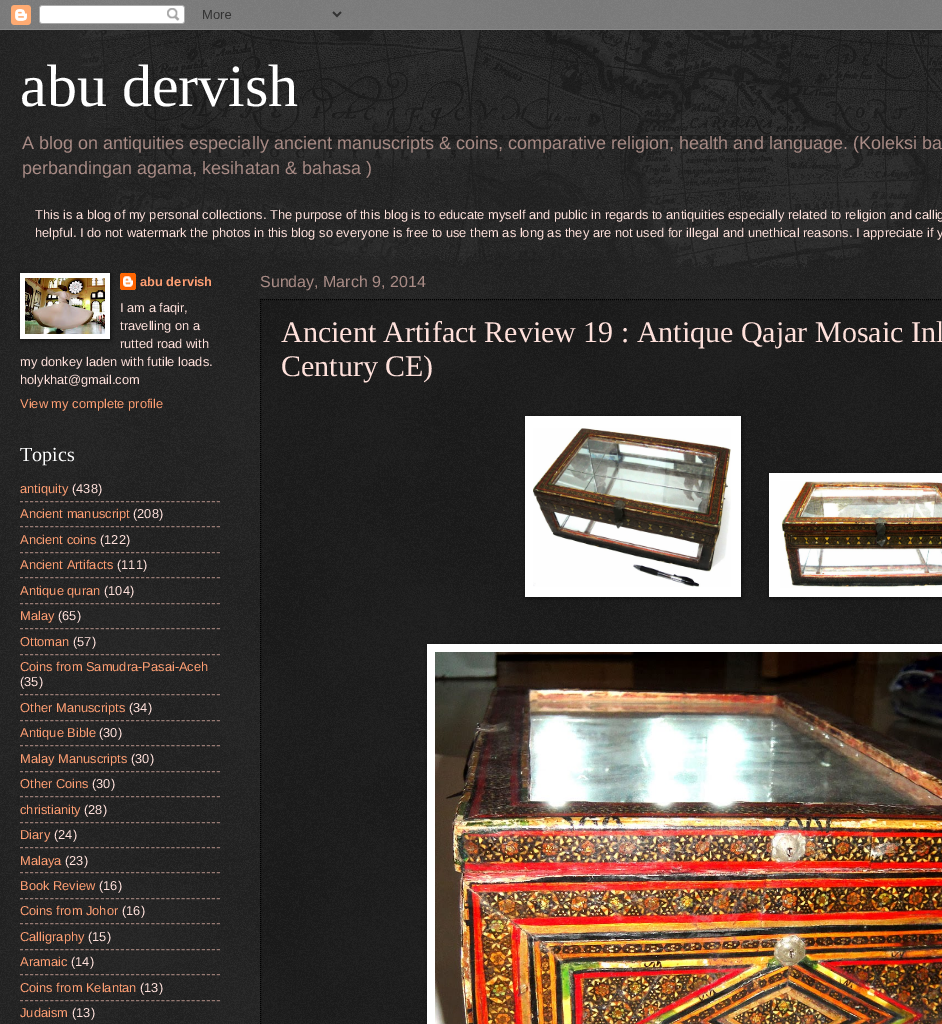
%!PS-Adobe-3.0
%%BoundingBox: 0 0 942 1024
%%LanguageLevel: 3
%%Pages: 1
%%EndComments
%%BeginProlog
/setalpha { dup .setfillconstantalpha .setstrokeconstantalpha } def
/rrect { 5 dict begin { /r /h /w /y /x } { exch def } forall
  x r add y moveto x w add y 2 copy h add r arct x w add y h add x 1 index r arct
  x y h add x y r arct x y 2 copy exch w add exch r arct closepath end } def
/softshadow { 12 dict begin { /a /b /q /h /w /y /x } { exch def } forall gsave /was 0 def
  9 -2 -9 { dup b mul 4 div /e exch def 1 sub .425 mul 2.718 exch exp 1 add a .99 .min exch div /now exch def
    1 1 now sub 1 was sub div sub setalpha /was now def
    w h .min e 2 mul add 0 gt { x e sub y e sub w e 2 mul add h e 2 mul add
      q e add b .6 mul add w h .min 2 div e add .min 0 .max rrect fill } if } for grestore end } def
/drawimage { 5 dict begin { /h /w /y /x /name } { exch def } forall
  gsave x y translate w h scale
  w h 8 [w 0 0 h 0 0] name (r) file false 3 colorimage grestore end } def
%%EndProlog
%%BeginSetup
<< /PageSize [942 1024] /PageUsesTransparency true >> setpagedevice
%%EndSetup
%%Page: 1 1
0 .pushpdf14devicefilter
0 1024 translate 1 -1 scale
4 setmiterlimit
0 setgray
0 0 942 1024 rectfill
(images/1.raw) 0 0 942 1024 drawimage
(images/2.raw) 0 0 942 30 drawimage
(images/3.raw) 79 30 863 239 drawimage
21 274 90 66 0 2.5 0.5 softshadow
1 setgray
20 273 90 66 rectfill
(images/4.raw) 25 278 80 56 drawimage
(images/5.raw) 120 273 16 17 drawimage
0.588 0.478 0.451 setrgbcolor
[3 2.05] 0 setdash
newpath 20 501.5 moveto 220 501.5 lineto stroke
newpath 20 526.5 moveto 220 526.5 lineto stroke
newpath 20 552.5 moveto 220 552.5 lineto stroke
newpath 20 577.5 moveto 220 577.5 lineto stroke
newpath 20 603.5 moveto 220 603.5 lineto stroke
newpath 20 628.5 moveto 220 628.5 lineto stroke
newpath 20 654.5 moveto 220 654.5 lineto stroke
newpath 20 694.5 moveto 220 694.5 lineto stroke
newpath 20 720.5 moveto 220 720.5 lineto stroke
newpath 20 745.5 moveto 220 745.5 lineto stroke
newpath 20 771.5 moveto 220 771.5 lineto stroke
newpath 20 796.5 moveto 220 796.5 lineto stroke
newpath 20 822.5 moveto 220 822.5 lineto stroke
newpath 20 847.5 moveto 220 847.5 lineto stroke
newpath 20 872.5 moveto 220 872.5 lineto stroke
newpath 20 898.5 moveto 220 898.5 lineto stroke
newpath 20 923.5 moveto 220 923.5 lineto stroke
newpath 20 949.5 moveto 220 949.5 lineto stroke
newpath 20 974.5 moveto 220 974.5 lineto stroke
newpath 20 1000.5 moveto 220 1000.5 lineto stroke
0.2 setalpha
0 setgray
260 299 682 725 rectfill
1 setalpha
[1 1] 0 setdash
newpath 260 299.5 moveto 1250 299.5 lineto stroke
newpath 260.5 299 moveto 260.5 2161 lineto stroke
526 417 216 181 0 2.5 0.5 softshadow
1 setgray
525 416 216 181 rectfill
(images/6.raw) 533 428 198 159 drawimage
0 setgray
770 474 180 124 0 2.5 0.5 softshadow
1 setgray
769 473 173 124 rectfill
(images/7.raw) 780 481 162 107 drawimage
0 setgray
428 645 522 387 0 2.5 0.5 softshadow
1 setgray
427 644 515 380 rectfill
(images/8.raw) 435 652 507 372 drawimage
/LiberationSerif-Regular [60 0 0 -60 0 0] selectfont
20 106 moveto (abu dervish) show
/LiberationSans-Regular [18.03 0 0 -18.03 0 0] selectfont
0.659 0.545 0.522 setrgbcolor
22 149 moveto (A blog on antiquities especially ancient manuscripts & coins, comparative religion, health and language. \(Koleksi ba) show
22 174 moveto (perbandingan agama, kesihatan & bahasa \)) show
/LiberationSans-Regular [12.88 0 0 -12.88 0 0] selectfont
1 0.882 0.859 setrgbcolor
35 219 moveto (This is a blog of my personal collections. The purpose of this blog is to educate myself and public in regards to antiquities especially related to religion and callig) show
35 237 moveto (helpful. I do not watermark the photos in this blog so everyone is free to use them as long as they are not used for illegal and unethical reasons. I appreciate if y) show
/LiberationSans-Bold [12.88 0 0 -12.88 0 0] selectfont
1 0.624 0.451 setrgbcolor
140 286 moveto (abu dervish) show
/LiberationSans-Regular [12.88 0 0 -12.88 0 0] selectfont
1 0.882 0.859 setrgbcolor
120 312 moveto (I am a faqir,) show
120 330 moveto (travelling on a) show
120 348 moveto (rutted road with) show
20 366 moveto (my donkey laden with futile loads.) show
20 384 moveto (holykhat@gmail.com) show
1 0.624 0.451 setrgbcolor
20 408 moveto (View my complete profile) show
/LiberationSerif-Regular [20 0 0 -20 0 0] selectfont
1 setgray
20 461 moveto (Topics) show
/LiberationSans-Regular [12.88 0 0 -12.88 0 0] selectfont
1 0.624 0.451 setrgbcolor
20 493 moveto (antiquity) show
1 0.882 0.859 setrgbcolor
72 493 moveto (\(438\)) show
1 0.624 0.451 setrgbcolor
20 518 moveto (Ancient manuscript) show
1 0.882 0.859 setrgbcolor
133 518 moveto (\(208\)) show
1 0.624 0.451 setrgbcolor
20 544 moveto (Ancient coins) show
1 0.882 0.859 setrgbcolor
100 544 moveto (\(122\)) show
1 0.624 0.451 setrgbcolor
20 569 moveto (Ancient Artifacts) show
1 0.882 0.859 setrgbcolor
117 569 moveto (\(111\)) show
1 0.624 0.451 setrgbcolor
20 595 moveto (Antique quran) show
1 0.882 0.859 setrgbcolor
104 595 moveto (\(104\)) show
1 0.624 0.451 setrgbcolor
20 620 moveto (Malay) show
1 0.882 0.859 setrgbcolor
58 620 moveto (\(65\)) show
1 0.624 0.451 setrgbcolor
20 646 moveto (Ottoman) show
1 0.882 0.859 setrgbcolor
73 646 moveto (\(57\)) show
1 0.624 0.451 setrgbcolor
20 671 moveto (Coins from Samudra-Pasai-Aceh) show
1 0.882 0.859 setrgbcolor
20 686 moveto (\(35\)) show
1 0.624 0.451 setrgbcolor
20 712 moveto (Other Manuscripts) show
1 0.882 0.859 setrgbcolor
129 712 moveto (\(34\)) show
1 0.624 0.451 setrgbcolor
20 737 moveto (Antique Bible) show
1 0.882 0.859 setrgbcolor
99 737 moveto (\(30\)) show
1 0.624 0.451 setrgbcolor
20 763 moveto (Malay Manuscripts) show
1 0.882 0.859 setrgbcolor
131 763 moveto (\(30\)) show
1 0.624 0.451 setrgbcolor
20 788 moveto (Other Coins) show
1 0.882 0.859 setrgbcolor
92 788 moveto (\(30\)) show
1 0.624 0.451 setrgbcolor
20 814 moveto (christianity) show
1 0.882 0.859 setrgbcolor
84 814 moveto (\(28\)) show
1 0.624 0.451 setrgbcolor
20 839 moveto (Diary) show
1 0.882 0.859 setrgbcolor
54 839 moveto (\(24\)) show
1 0.624 0.451 setrgbcolor
20 865 moveto (Malaya) show
1 0.882 0.859 setrgbcolor
65 865 moveto (\(23\)) show
1 0.624 0.451 setrgbcolor
20 890 moveto (Book Review) show
1 0.882 0.859 setrgbcolor
99 890 moveto (\(16\)) show
1 0.624 0.451 setrgbcolor
20 915 moveto (Coins from Johor) show
1 0.882 0.859 setrgbcolor
122 915 moveto (\(16\)) show
1 0.624 0.451 setrgbcolor
20 941 moveto (Calligraphy) show
1 0.882 0.859 setrgbcolor
88 941 moveto (\(15\)) show
1 0.624 0.451 setrgbcolor
20 966 moveto (Aramaic) show
1 0.882 0.859 setrgbcolor
71 966 moveto (\(14\)) show
1 0.624 0.451 setrgbcolor
20 992 moveto (Coins from Kelantan) show
1 0.882 0.859 setrgbcolor
140 992 moveto (\(13\)) show
1 0.624 0.451 setrgbcolor
20 1017 moveto (Judaism) show
1 0.882 0.859 setrgbcolor
72 1017 moveto (\(13\)) show
/LiberationSans-Regular [16 0 0 -16 0 0] selectfont
0.659 0.545 0.522 setrgbcolor
260 287 moveto (Sunday, March 9, 2014) show
/LiberationSerif-Regular [30 0 0 -30 0 0] selectfont
1 0.882 0.859 setrgbcolor
281 342 moveto (Ancient Artifact Review 19 : Antique Qajar Mosaic Inl) show
281 376 moveto (Century CE\)) show
.poppdf14devicefilter showpage
%%EOF
